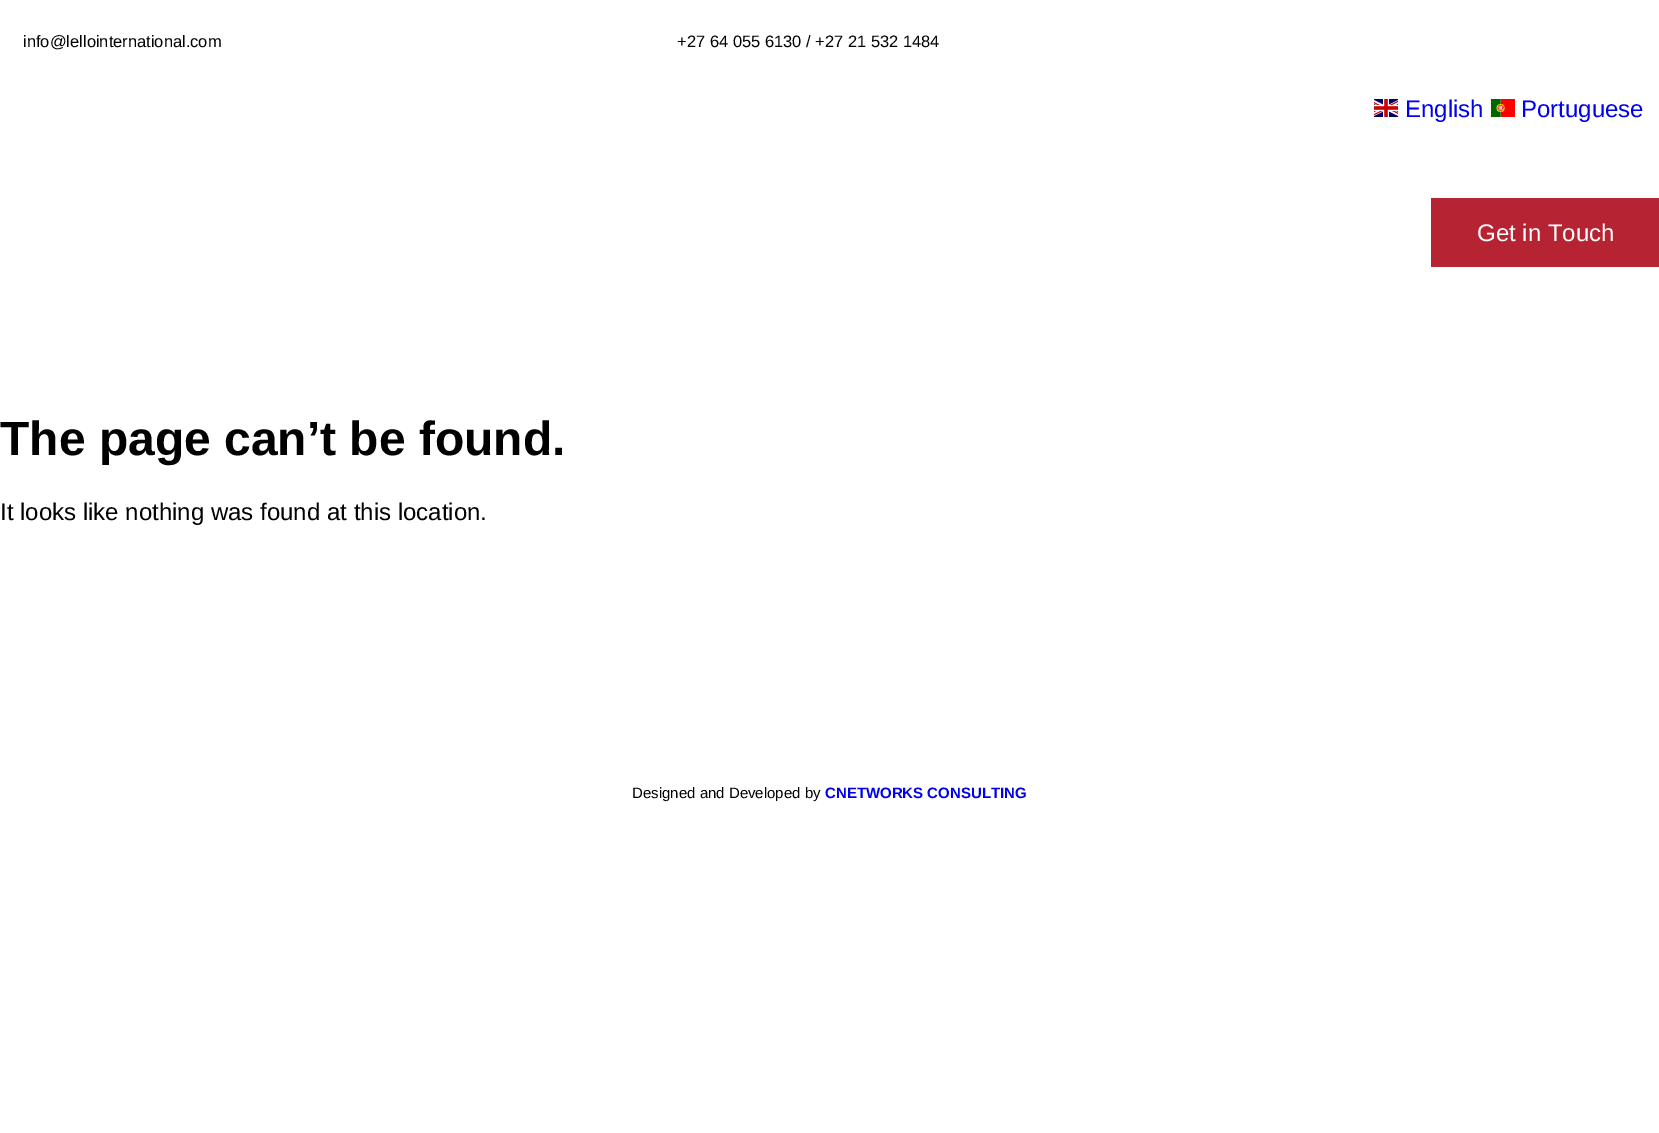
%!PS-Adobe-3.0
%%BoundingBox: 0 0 1659 1133
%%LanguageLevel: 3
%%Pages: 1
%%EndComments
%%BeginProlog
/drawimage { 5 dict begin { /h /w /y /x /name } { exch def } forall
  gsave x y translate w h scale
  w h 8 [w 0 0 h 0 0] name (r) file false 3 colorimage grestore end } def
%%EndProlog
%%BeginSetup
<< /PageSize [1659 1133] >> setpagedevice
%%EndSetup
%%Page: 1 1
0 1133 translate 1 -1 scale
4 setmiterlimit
1 setgray
0 0 1659 1133 rectfill
(images/1.raw) 1374 99 24 18 drawimage
(images/2.raw) 1491 99 24 18 drawimage
0.714 0.141 0.2 setrgbcolor
1431 198 228 69 rectfill
/LiberationSans-Regular [16.5 0 0 -16.5 0 0] selectfont
0 setgray
23 47 moveto (info@lellointernational.com) show
677 47 moveto (+27 64 055 6130 / +27 21 532 1484) show
/LiberationSans-Regular [24 0 0 -24 0 0] selectfont
0 0 0.933 setrgbcolor
1405 117 moveto (English) show
1521 117 moveto (Portuguese) show
1 setgray
1477 241 moveto (Get in Touch) show
/LiberationSans-Bold [48 0 0 -48 0 0] selectfont
0 setgray
0 455 moveto (The page can’t be found.) show
/LiberationSans-Regular [24 0 0 -24 0 0] selectfont
0 520 moveto (It looks like nothing was found at this location.) show
/LiberationSans-Regular [15 0 0 -15 0 0] selectfont
632 798 moveto (Designed and Developed by) show
/LiberationSans-Bold [15 0 0 -15 0 0] selectfont
0 0 0.933 setrgbcolor
825 798 moveto (CNETWORKS CONSULTING) show
showpage
%%EOF
